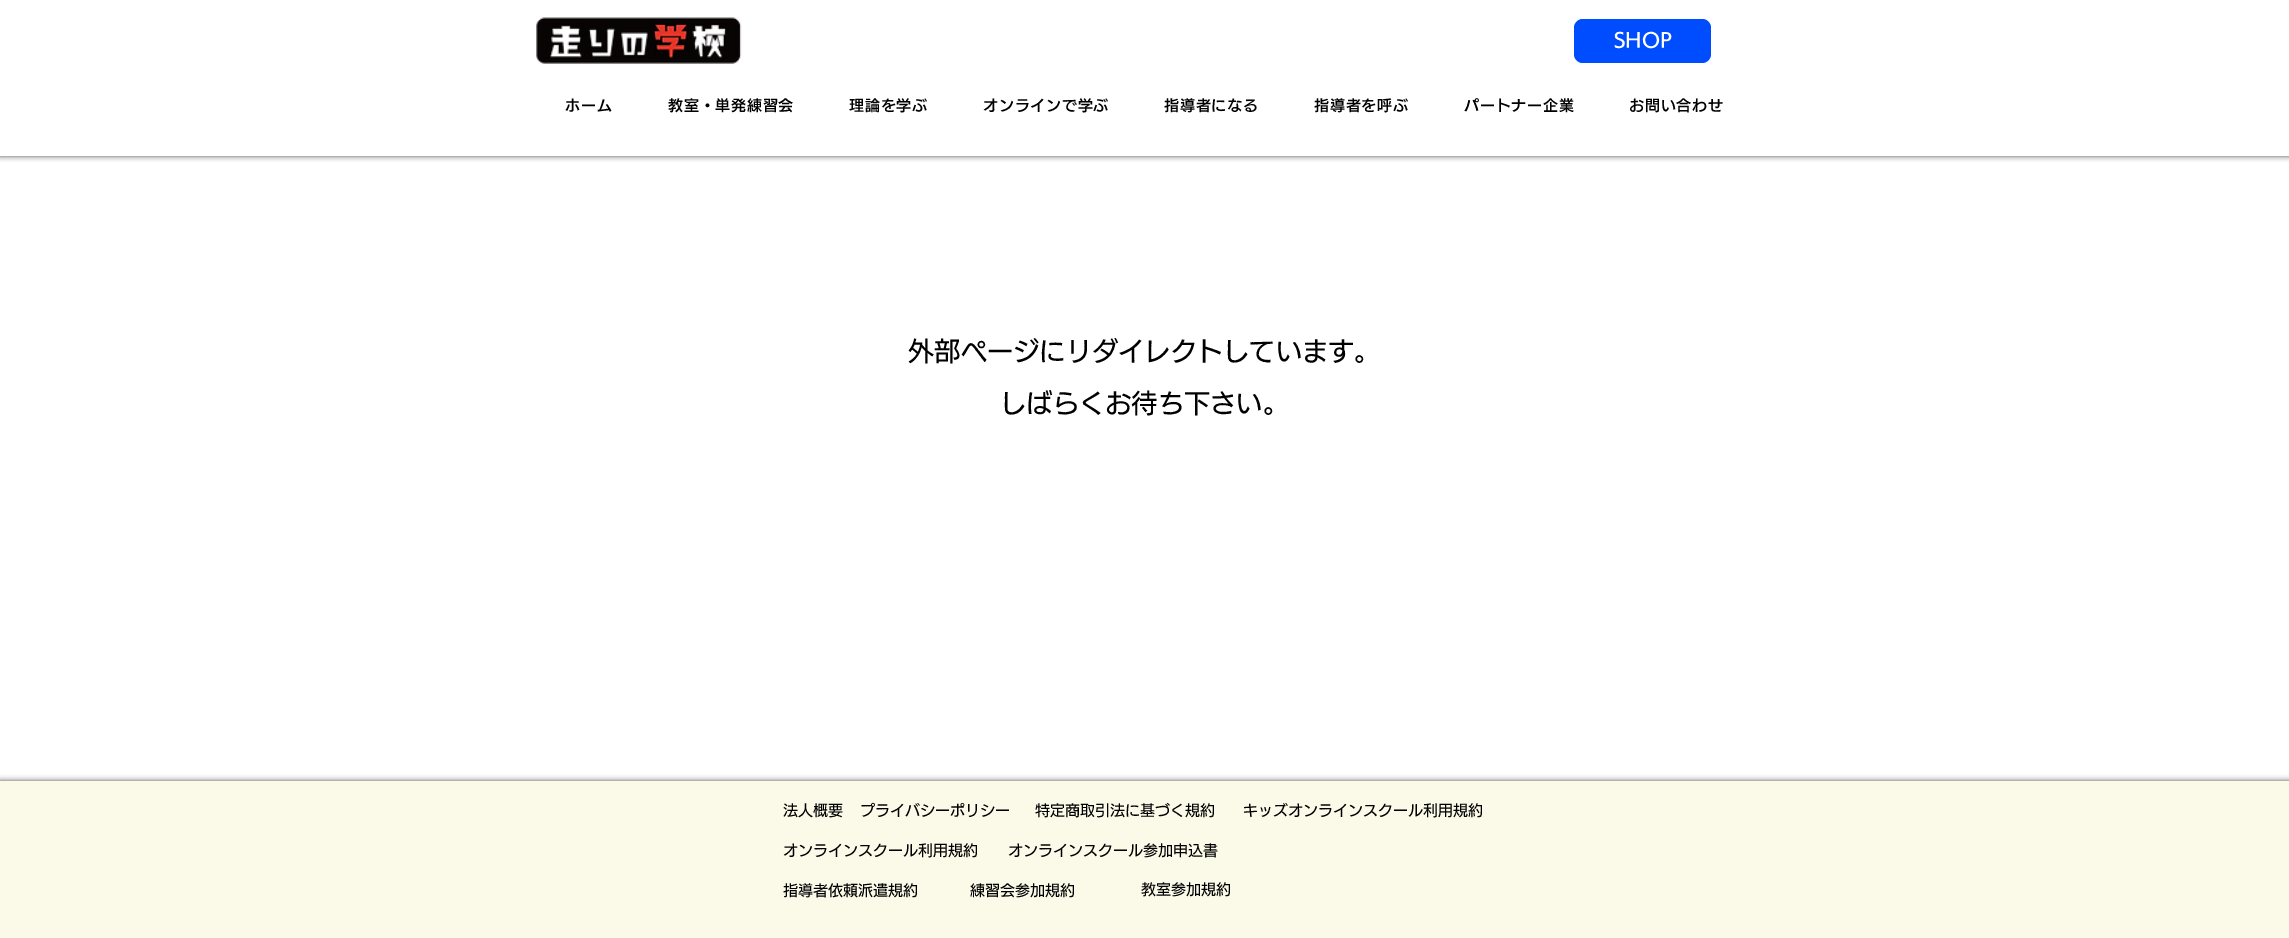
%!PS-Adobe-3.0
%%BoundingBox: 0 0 2289 938
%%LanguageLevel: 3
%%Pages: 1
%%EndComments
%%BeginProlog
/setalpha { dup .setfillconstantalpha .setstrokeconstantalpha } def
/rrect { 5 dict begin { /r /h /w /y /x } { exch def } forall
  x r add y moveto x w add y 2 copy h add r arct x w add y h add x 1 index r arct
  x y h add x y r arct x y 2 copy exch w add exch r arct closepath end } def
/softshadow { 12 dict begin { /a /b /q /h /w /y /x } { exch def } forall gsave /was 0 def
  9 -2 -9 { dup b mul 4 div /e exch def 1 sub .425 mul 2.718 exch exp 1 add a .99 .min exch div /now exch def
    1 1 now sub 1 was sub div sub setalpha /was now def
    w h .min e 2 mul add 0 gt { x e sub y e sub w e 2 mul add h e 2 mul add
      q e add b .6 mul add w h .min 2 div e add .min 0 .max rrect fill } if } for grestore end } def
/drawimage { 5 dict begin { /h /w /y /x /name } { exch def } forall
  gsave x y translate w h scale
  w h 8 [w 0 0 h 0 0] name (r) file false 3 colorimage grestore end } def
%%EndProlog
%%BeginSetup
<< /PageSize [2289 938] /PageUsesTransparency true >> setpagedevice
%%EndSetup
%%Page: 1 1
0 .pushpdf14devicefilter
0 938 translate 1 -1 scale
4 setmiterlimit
1 setgray
0 0 2289 938 rectfill
gsave
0 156 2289 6 rectclip
0 setgray
0 0 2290 156 0 3 0.7 softshadow
grestore
(images/1.raw) 536 17 206 47 drawimage
0 0.298 1 setrgbcolor
1574 19 137 44 9 rrect fill
0 setgray
0 781 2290 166 0 3 0.7 softshadow
0.984 0.976 0.906 setrgbcolor
0 781 2289 157 rectfill
/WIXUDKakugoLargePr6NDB-SemiBold [19 0 0 -19 0 0] selectfont
1 setgray
1614 47 moveto (SHOP) show
/WIXUDKakugoLargePr6NDB-SemiBold [15 0 0 -15 0 0] selectfont
0 setgray
565 111 moveto 0.75 0 (ホーム) ashow
668 111 moveto 0.75 0 (教室・単発練習会) ashow
849 111 moveto 0.75 0 (理論を学ぶ) ashow
983 111 moveto 0.75 0 (オンラインで学ぶ) ashow
1164 111 moveto 0.75 0 (指導者になる) ashow
1314 111 moveto 0.75 0 (指導者を呼ぶ) ashow
1464 111 moveto 0.75 0 (パートナー企業) ashow
1629 111 moveto 0.75 0 (お問い合わせ) ashow
/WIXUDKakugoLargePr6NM-Medium [26.25 0 0 -26.25 0 0] selectfont
908 361 moveto (外部ページにリダイレクトしています。) show
1000 413 moveto (しばらくお待ち下さい。) show
/WIXUDKakugoLargePr6NM-Medium [15 0 0 -15 0 0] selectfont
783 816 moveto (法人概要) show
860 816 moveto (プライバシーポリシー) show
1035 816 moveto (特定商取引法に基づく規約) show
1243 816 moveto (キッズオンラインスクール利用規約) show
783 856 moveto (オンラインスクール利用規約) show
1008 856 moveto (オンラインスクール参加申込書) show
783 896 moveto (指導者依頼派遣規約) show
970 896 moveto (練習会参加規約) show
1141 895 moveto (教室参加規約) show
.poppdf14devicefilter showpage
%%EOF
